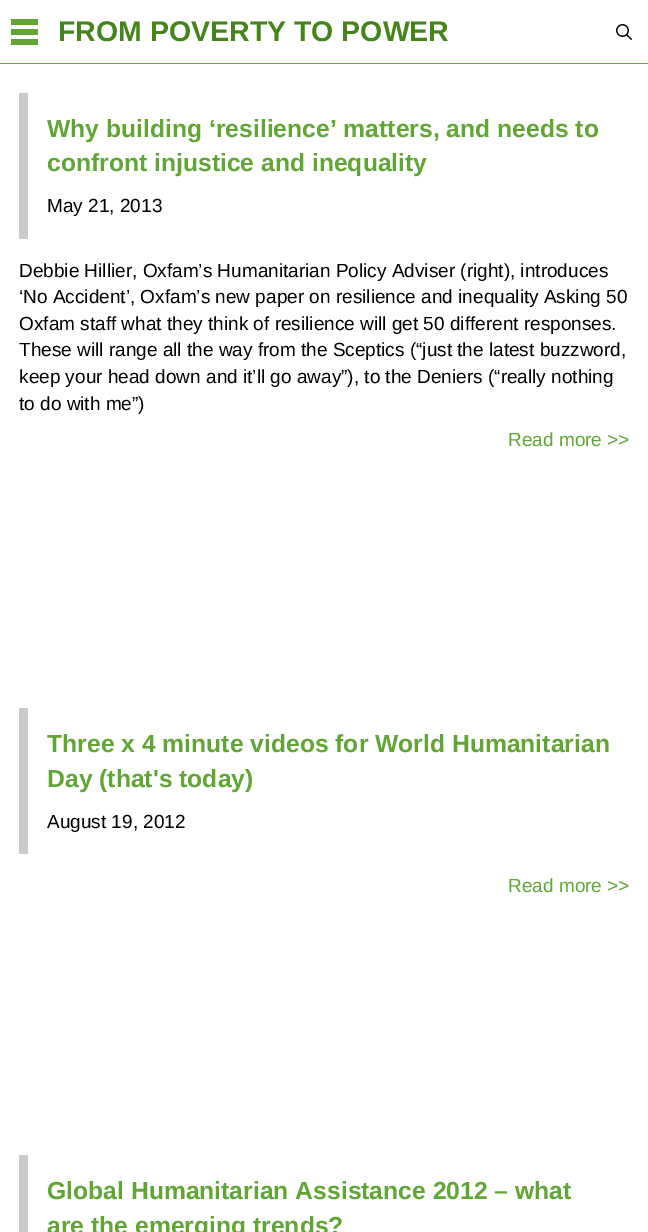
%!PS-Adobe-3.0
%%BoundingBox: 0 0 648 1232
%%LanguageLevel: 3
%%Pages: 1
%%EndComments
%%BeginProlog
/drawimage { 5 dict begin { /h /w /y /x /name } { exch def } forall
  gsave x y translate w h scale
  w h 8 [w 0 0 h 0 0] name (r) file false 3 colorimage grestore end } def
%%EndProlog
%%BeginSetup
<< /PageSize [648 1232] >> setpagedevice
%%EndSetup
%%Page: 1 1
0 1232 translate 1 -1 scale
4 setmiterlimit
1 setgray
0 0 648 1232 rectfill
0.38 0.647 0.204 setrgbcolor
0 63 648 1 rectfill
11 19 27 6 rectfill
11 29 27 6 rectfill
11 39 27 6 rectfill
(images/1.raw) 616 24 16 16 drawimage
0.792 setgray
19 93 9 146 rectfill
19 708 9 146 rectfill
19 1155 9 77 rectfill
/LiberationSans-Bold [28.5 0 0 -28.5 0 0] selectfont
0.267 0.518 0.102 setrgbcolor
58 41 moveto (FROM POVERTY TO POWER) show
/LiberationSans-Bold [24.7 0 0 -24.7 0 0] selectfont
0.38 0.647 0.204 setrgbcolor
47 137 moveto (Why building ‘resilience’ matters, and needs to) show
47 171 moveto (confront injustice and inequality) show
/LiberationSans-Regular [19 0 0 -19 0 0] selectfont
0 setgray
47 212 moveto (May 21, 2013) show
19 277 moveto (Debbie Hillier, Oxfam’s Humanitarian Policy Adviser \(right\), introduces) show
19 303 moveto (‘No Accident’, Oxfam’s new paper on resilience and inequality Asking 50) show
19 330 moveto (Oxfam staff what they think of resilience will get 50 different responses.) show
19 356 moveto (These will range all the way from the Sceptics \(“just the latest buzzword,) show
19 383 moveto (keep your head down and it’ll go away”\), to the Deniers \(“really nothing) show
19 410 moveto (to do with me”\)) show
0.38 0.647 0.204 setrgbcolor
508 446 moveto (Read more >>) show
/LiberationSans-Bold [24.7 0 0 -24.7 0 0] selectfont
47 752 moveto (Three x 4 minute videos for World Humanitarian) show
47 787 moveto (Day \(that's today\)) show
/LiberationSans-Regular [19 0 0 -19 0 0] selectfont
0 setgray
47 828 moveto (August 19, 2012) show
0.38 0.647 0.204 setrgbcolor
508 892 moveto (Read more >>) show
/LiberationSans-Bold [24.7 0 0 -24.7 0 0] selectfont
47 1199 moveto (Global Humanitarian Assistance 2012 – what) show
47 1234 moveto (are the emerging trends?) show
showpage
%%EOF
